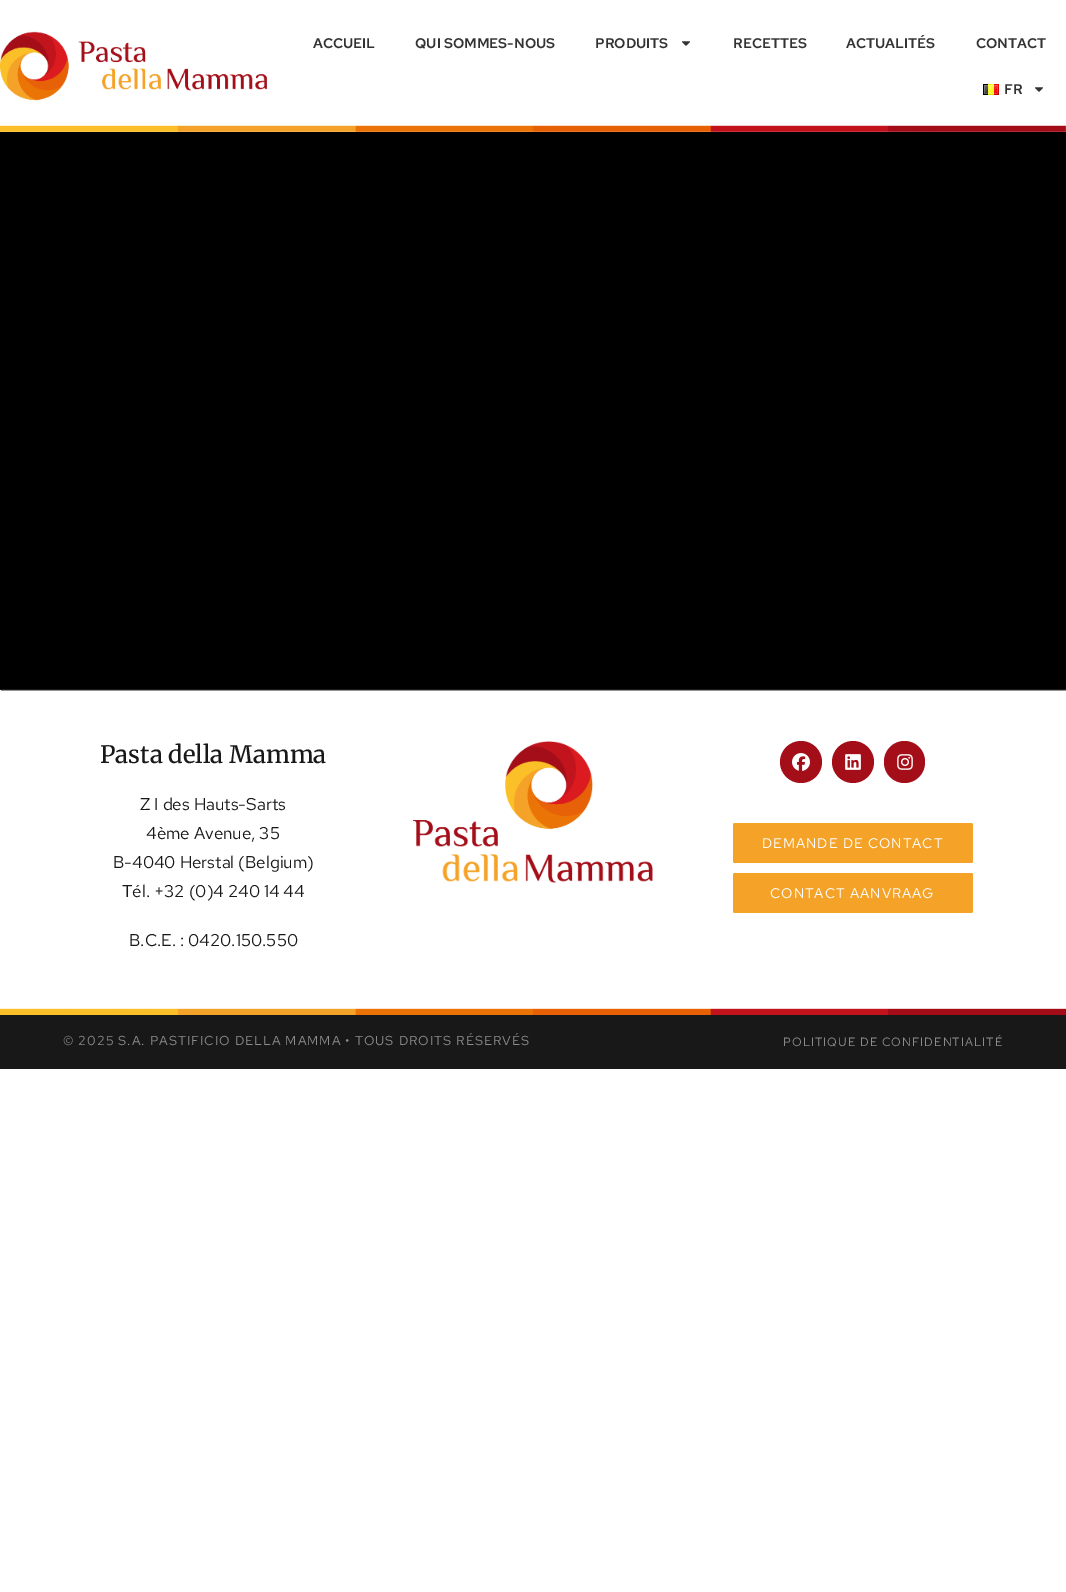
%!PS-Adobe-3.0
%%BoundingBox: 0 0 1066 1592
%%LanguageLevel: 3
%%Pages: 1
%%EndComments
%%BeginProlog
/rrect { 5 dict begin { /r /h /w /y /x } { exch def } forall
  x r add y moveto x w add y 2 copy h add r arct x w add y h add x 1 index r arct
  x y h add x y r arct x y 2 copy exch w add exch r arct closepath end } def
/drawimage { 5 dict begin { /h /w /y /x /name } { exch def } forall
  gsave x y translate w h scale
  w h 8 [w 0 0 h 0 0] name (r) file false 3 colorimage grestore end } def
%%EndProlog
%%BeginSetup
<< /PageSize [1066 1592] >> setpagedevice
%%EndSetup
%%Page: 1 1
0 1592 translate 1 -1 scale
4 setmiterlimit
1 setgray
0 0 1066 1592 rectfill
(images/1.raw) 0 125 1066 7 drawimage
(images/2.raw) 0 31 267 70 drawimage
(images/3.raw) 682 41 8 5 drawimage
(images/4.raw) 983 84 16 11 drawimage
(images/3.raw) 1035 87 8 5 drawimage
0 setgray
0 132 1066 557 rectfill
0.094 setgray
0 689 1066 1 rectfill
(images/5.raw) 0 1008 1066 7 drawimage
0.58 setgray
1 690 1065 1 rectfill
(images/6.raw) 413 741 240 142 drawimage
0.639 0.055 0.094 setrgbcolor
newpath 801 762 21 0 360 arc closepath fill
(images/7.raw) 792 753 18 18 drawimage
newpath 853 762 21 0 360 arc closepath fill
(images/8.raw) 845 754 16 16 drawimage
884 741 41 42 20.5 rrect fill
(images/9.raw) 897 754 16 16 drawimage
0.961 0.639 0.157 setrgbcolor
733 823 240 40 2 rrect fill
733 873 240 40 2 rrect fill
0.094 setgray
0 1015 1066 54 rectfill
/RedHatText-SemiBold [14 0 0 -14 0 0] selectfont
0.2 setgray
313 48 moveto (ACCUEIL) show
415 48 moveto (QUI SOMMES-NOUS) show
595 48 moveto (PRODUITS) show
733 48 moveto (RECETTES) show
846 48 moveto (ACTUALITÉS) show
976 48 moveto (CONTACT) show
1004 94 moveto (FR) show
/Merriweather-Medium [24 0 0 -24 0 0] selectfont
0.094 setgray
100 763 moveto (Pasta della Mamma) show
/RedHatText-Regular [17 0 0 -17 0 0] selectfont
140 810 moveto (Z I des Hauts-Sarts) show
146 839 moveto (4ème Avenue, 35) show
113 868 moveto (B-4040 Herstal \(Belgium\)) show
122 897 moveto (Tél. +32 \(0\)4 240 14 44) show
129 946 moveto (B.C.E. : 0420.150.550) show
/RedHatText-Regular [14 0 0 -14 0 0] selectfont
1 setgray
762 848 moveto 1 0 (DEMANDE DE CONTACT) ashow
770 898 moveto 1 0 (CONTACT AANVRAAG) ashow
/RedHatText-Regular [13 0 0 -13 0 0] selectfont
0.549 setgray
63 1045 moveto 1 0 (© 2025 S.A. PASTIFICIO DELLA MAMMA • TOUS DROITS RÉSERVÉS) ashow
/RedHatText-Regular [12 0 0 -12 0 0] selectfont
783 1046 moveto 1 0 (POLITIQUE DE CONFIDENTIALITÉ) ashow
showpage
%%EOF
